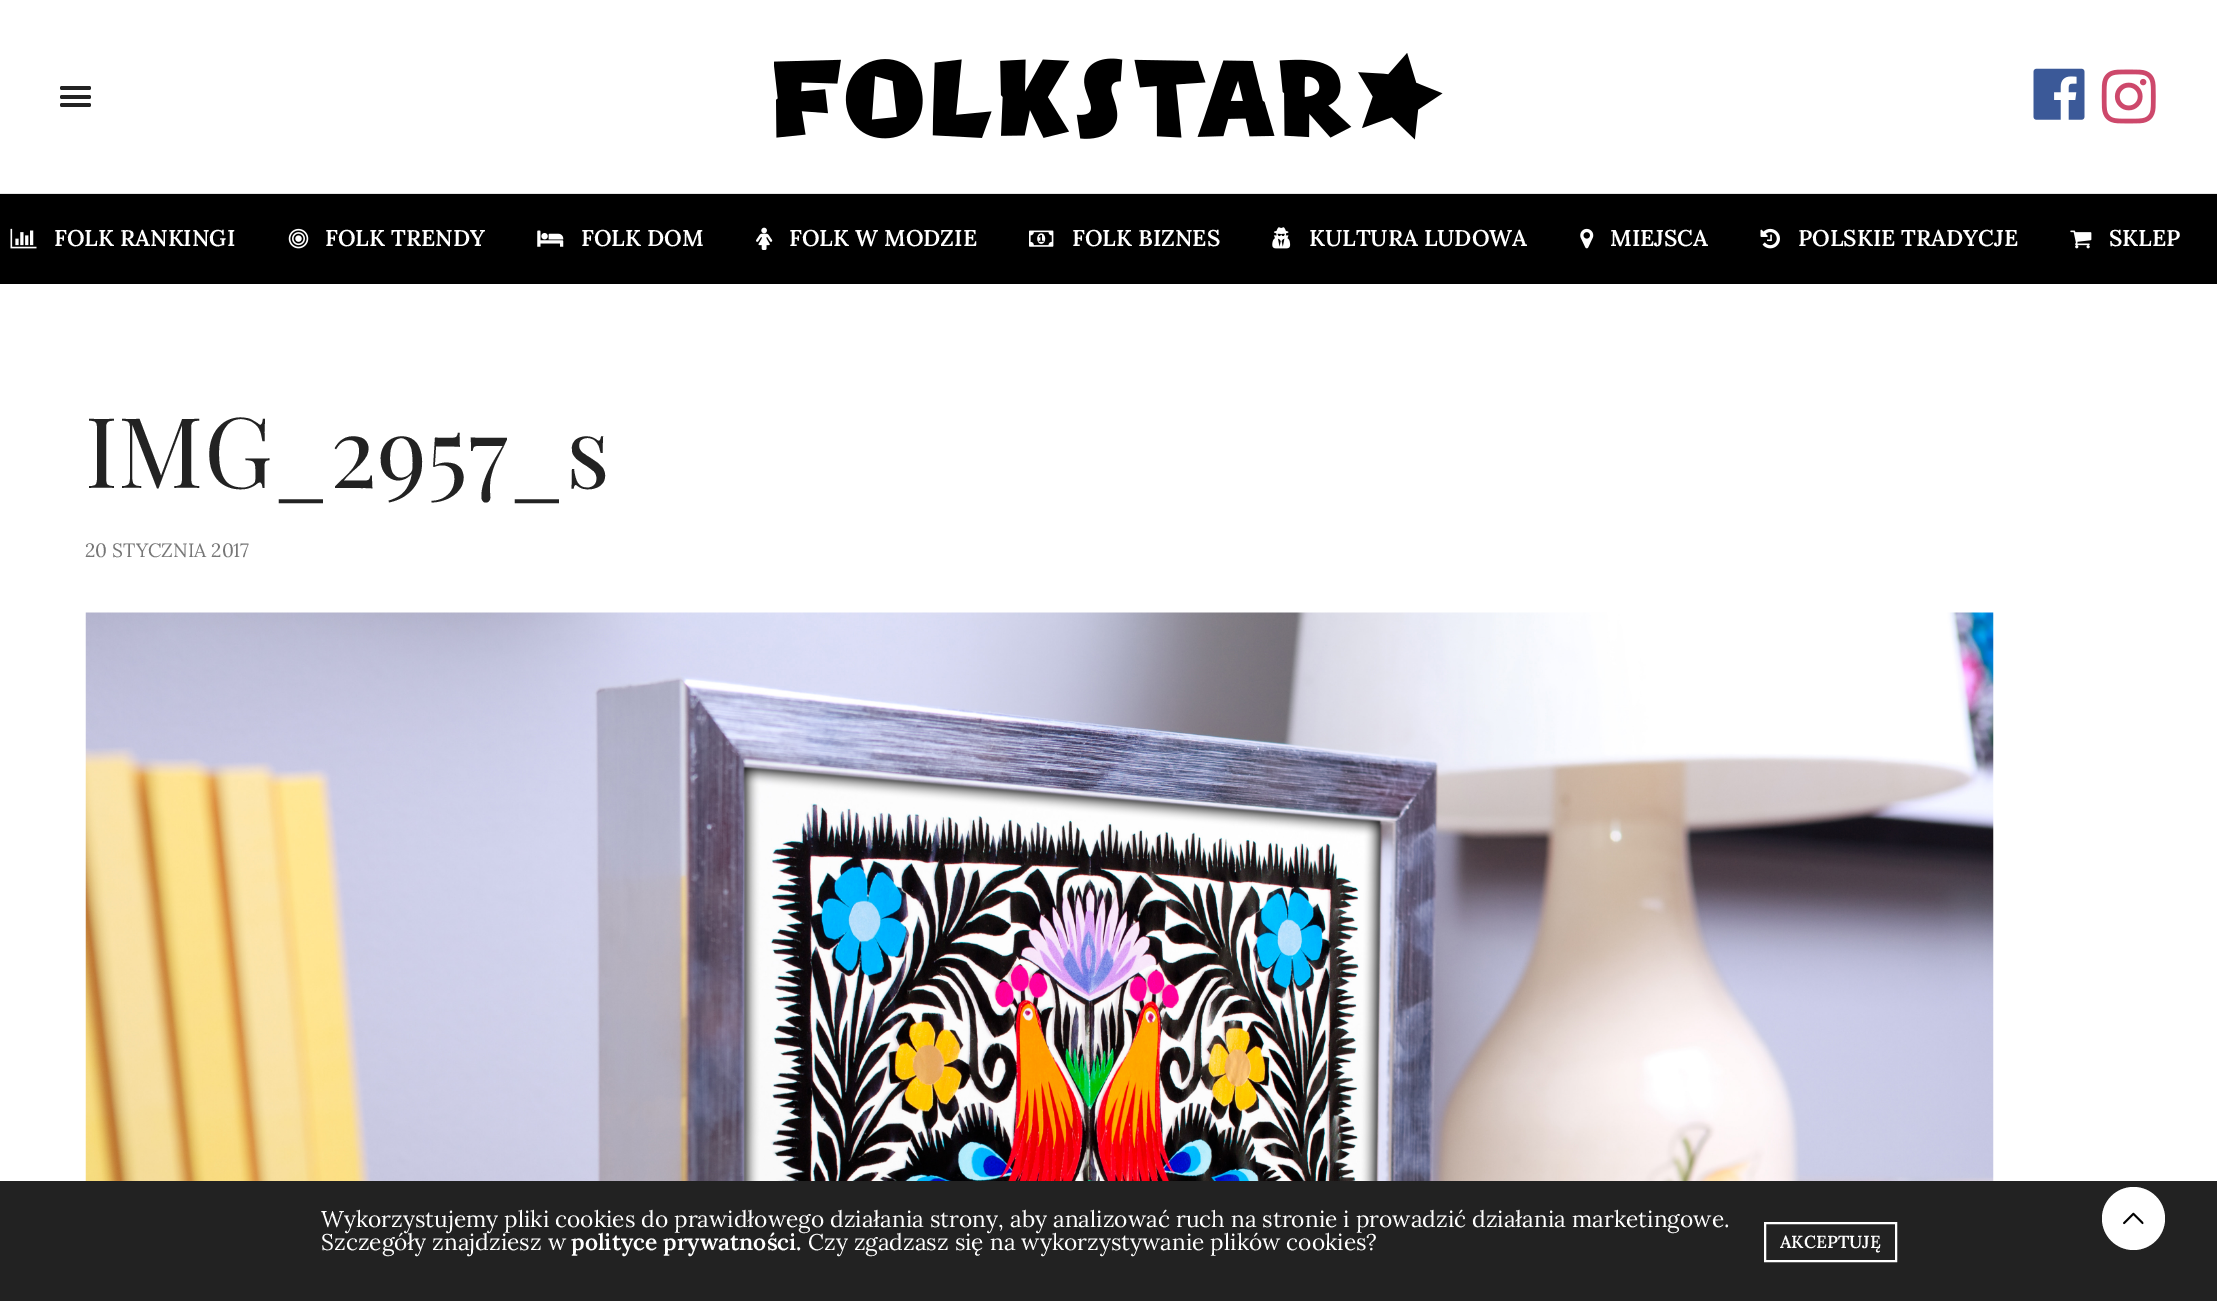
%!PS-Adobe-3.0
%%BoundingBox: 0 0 2217 1301
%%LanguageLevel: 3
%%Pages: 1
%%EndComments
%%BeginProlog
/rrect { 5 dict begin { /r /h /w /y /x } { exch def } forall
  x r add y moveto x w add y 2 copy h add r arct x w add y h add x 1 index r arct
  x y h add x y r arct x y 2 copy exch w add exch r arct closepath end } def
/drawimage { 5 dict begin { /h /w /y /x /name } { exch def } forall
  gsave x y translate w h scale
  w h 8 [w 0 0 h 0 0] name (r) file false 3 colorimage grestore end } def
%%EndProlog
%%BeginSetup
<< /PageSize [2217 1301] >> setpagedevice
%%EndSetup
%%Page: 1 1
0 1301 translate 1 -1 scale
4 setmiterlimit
1 setgray
0 0 2217 1301 rectfill
0.902 setgray
0 193 2217 1 rectfill
0.133 setgray
60 86 31 4 2 rrect fill
60 95 31 4 2 rrect fill
60 103 31 4 2 rrect fill
(images/1.raw) 774 53 669 87 drawimage
(images/2.raw) 2033 68 52 52 drawimage
(images/3.raw) 2101 69 55 55 drawimage
0 setgray
0 194 2217 90 rectfill
(images/4.raw) 10 228 27 21 drawimage
(images/5.raw) 288 228 21 21 drawimage
(images/6.raw) 537 230 27 17 drawimage
(images/7.raw) 756 227 17 23 drawimage
(images/8.raw) 1029 230 25 17 drawimage
(images/9.raw) 1272 227 19 22 drawimage
(images/10.raw) 1580 228 14 21 drawimage
(images/11.raw) 1760 228 20 21 drawimage
(images/12.raw) 2070 230 22 19 drawimage
(images/13.raw) 85 612 1909 569 drawimage
0.133 setgray
0 1181 2217 120 rectfill
1 setgray
2 setlinewidth
1765 1223 131 38 rectstroke
newpath 2133.5 1218.5 31.5 0 360 arc closepath fill
(images/14.raw) 2123 1212 21 13 drawimage
/Lora-SemiBold [22.75 0 0 -22.75 0 0] selectfont
54 246 moveto (FOLK RANKINGI) show
325 246 moveto (FOLK TRENDY) show
581 246 moveto (FOLK DOM) show
789 246 moveto (FOLK W MODZIE) show
1072 246 moveto (FOLK BIZNES) show
1309 246 moveto (KULTURA LUDOWA) show
1610 246 moveto (MIEJSCA) show
1798 246 moveto (POLSKIE TRADYCJE) show
2109 246 moveto (SKLEP) show
/PlayfairDisplay-Regular [98 0 0 -98 0 0] selectfont
0.133 setgray
85 488 moveto (IMG_2957_s) show
/Lora-Regular [19.25 0 0 -19.25 0 0] selectfont
0.463 setgray
85 557 moveto (20 STYCZNIA 2017) show
/Lora-Regular [22.75 0 0 -22.75 0 0] selectfont
1 setgray
321 1227 moveto (Wykorzystujemy pliki cookies do prawidłowego działania strony, aby analizować ruch na stronie i prowadzić działania marketingowe.) show
321 1250 moveto (Szczegóły znajdziesz w) show
/Lora-SemiBold [22.75 0 0 -22.75 0 0] selectfont
571 1250 moveto (polityce prywatności.) show
/Lora-Regular [22.75 0 0 -22.75 0 0] selectfont
808 1250 moveto (Czy zgadzasz się na wykorzystywanie plików cookies?) show
/Lora-SemiBold [17.5 0 0 -17.5 0 0] selectfont
1780 1248 moveto (AKCEPTUJĘ) show
showpage
%%EOF
